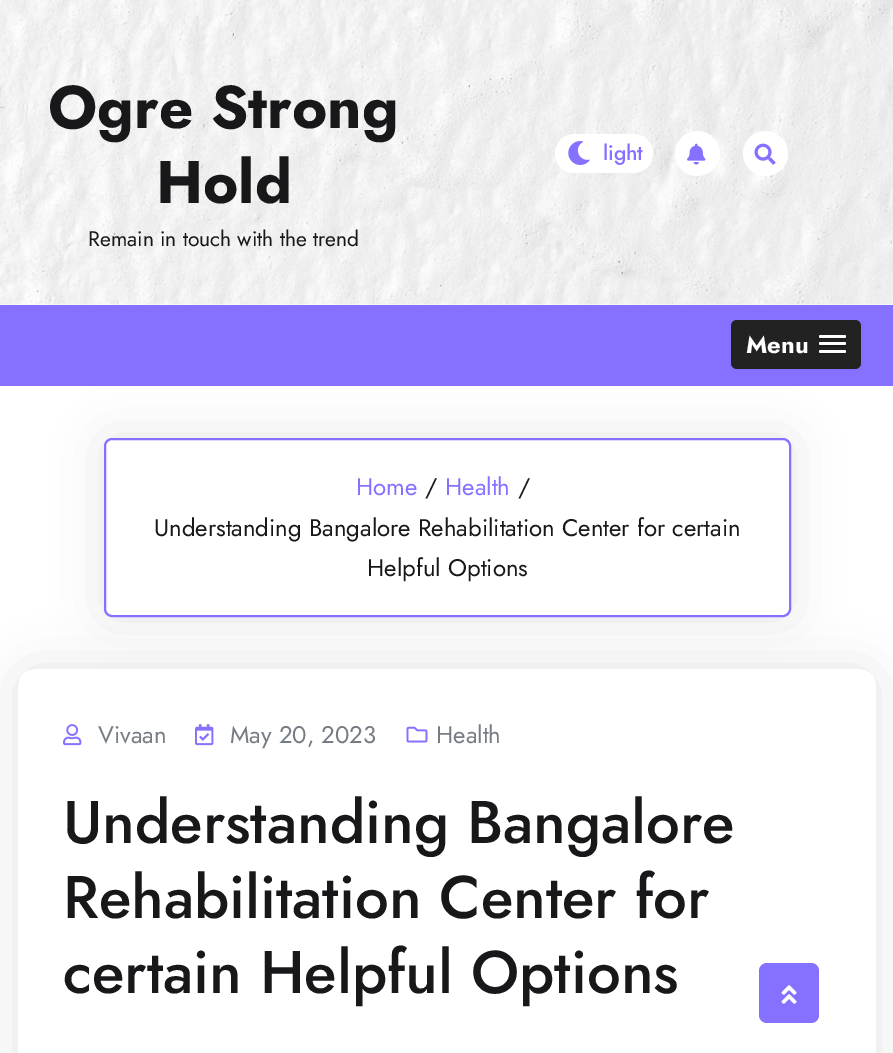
%!PS-Adobe-3.0
%%BoundingBox: 0 0 893 1053
%%LanguageLevel: 3
%%Pages: 1
%%EndComments
%%BeginProlog
/setalpha { dup .setfillconstantalpha .setstrokeconstantalpha } def
/rrect { 5 dict begin { /r /h /w /y /x } { exch def } forall
  x r add y moveto x w add y 2 copy h add r arct x w add y h add x 1 index r arct
  x y h add x y r arct x y 2 copy exch w add exch r arct closepath end } def
/softshadow { 12 dict begin { /a /b /q /h /w /y /x } { exch def } forall gsave /was 0 def
  9 -2 -9 { dup b mul 4 div /e exch def 1 sub .425 mul 2.718 exch exp 1 add a .99 .min exch div /now exch def
    1 1 now sub 1 was sub div sub setalpha /was now def
    w h .min e 2 mul add 0 gt { x e sub y e sub w e 2 mul add h e 2 mul add
      q e add b .6 mul add w h .min 2 div e add .min 0 .max rrect fill } if } for grestore end } def
/drawimage { 5 dict begin { /h /w /y /x /name } { exch def } forall
  gsave x y translate w h scale
  w h 8 [w 0 0 h 0 0] name (r) file false 3 colorimage grestore end } def
%%EndProlog
%%BeginSetup
<< /PageSize [893 1053] /PageUsesTransparency true >> setpagedevice
%%EndSetup
%%Page: 1 1
0 .pushpdf14devicefilter
0 1053 translate 1 -1 scale
4 setmiterlimit
1 setgray
0 0 893 1053 rectfill
(images/1.raw) 0 0 893 305 drawimage
555 134 98 39 19.5 rrect fill
(images/2.raw) 568 141 22 24 drawimage
newpath 697.5 153.5 22.5 0 360 arc closepath fill
(images/3.raw) 687 143 19 22 drawimage
newpath 765.5 153.5 22.5 0 360 arc closepath fill
(images/4.raw) 754 143 22 22 drawimage
gsave
newpath 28 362 moveto 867 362 lineto 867 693 lineto 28 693 lineto closepath 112 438 moveto 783 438 lineto 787.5 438 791 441.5 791 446 curveto 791 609 lineto 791 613.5 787.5 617 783 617 curveto 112 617 lineto 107.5 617 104 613.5 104 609 curveto 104 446 lineto 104 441.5 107.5 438 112 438 curveto closepath eoclip newpath
0 setgray
104 438 687 179 8 25 0.1 softshadow
grestore
0.522 0.443 1 setrgbcolor
0 305 893 81 rectfill
0.133 setgray
731 320 130 49 6 rrect fill
0.102 setgray
newpath 819 337 moveto 817.5 340 824.5 339 824.5 339 curveto 840.5 339 lineto 840.5 339 847.5 340 846 337 curveto 845.5 337 845 337.5 844.5 337.5 curveto 820.5 337.5 lineto 820 337.5 819.5 337 819 337 curveto closepath fill
1 setgray
819 335 27 3 1.5 rrect fill
0.102 setgray
newpath 819.5 344.5 moveto 819 346 lineto 819.5 348 824 347 824.5 347 curveto 840.5 347 lineto 841 347 845.5 348 846 346 curveto 845.5 344.5 lineto 844.5 345 lineto 820.5 345 lineto closepath fill
1 setgray
819 342 27 3 1.5 rrect fill
0.102 setgray
newpath 819 352 moveto 817.5 355 824.5 354 824.5 354 curveto 840.5 354 lineto 840.5 354 847.5 355 846 352 curveto 845.5 352 845 352.5 844.5 352.5 curveto 820.5 352.5 lineto 820 352.5 819.5 352 819 352 curveto closepath fill
1 setgray
819 350 27 3 1.5 rrect fill
0.522 0.443 1 setrgbcolor
2 setlinewidth
105 439 685 177 7 rrect stroke
gsave
newpath 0 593 moveto 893 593 lineto 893 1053 lineto 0 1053 lineto closepath 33 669 moveto 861 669 lineto 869.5 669 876 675.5 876 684 curveto 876 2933 lineto 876 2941.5 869.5 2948 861 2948 curveto 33 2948 lineto 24.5 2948 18 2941.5 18 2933 curveto 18 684 lineto 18 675.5 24.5 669 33 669 curveto closepath eoclip newpath
0 setgray
18 669 858 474 15 25 0.11 softshadow
grestore
(images/5.raw) 63 724 19 22 drawimage
(images/6.raw) 195 724 19 22 drawimage
(images/7.raw) 406 726 22 17 drawimage
759 963 60 60 8 rrect fill
(images/8.raw) 781 985 16 19 drawimage
/Jost-Bold [60 0 0 -60 0 0] selectfont
0.094 0.094 0.106 setrgbcolor
48 128 moveto (Ogre Strong) show
156 203 moveto (Hold) show
/Jost-Regular [21 0 0 -21 0 0] selectfont
88 246 moveto (Remain in touch with the trend) show
/Jost-Medium [21 0 0 -21 0 0] selectfont
0.522 0.443 1 setrgbcolor
603 160 moveto (light) show
/Jost-Bold [24 0 0 -24 0 0] selectfont
1 setgray
746 353 moveto (Menu) show
/Jost-Regular [24 0 0 -24 0 0] selectfont
0.522 0.443 1 setrgbcolor
356 495 moveto (Home) show
0.094 0.094 0.106 setrgbcolor
425 495 moveto (/) show
0.522 0.443 1 setrgbcolor
445 495 moveto (Health) show
0.094 0.094 0.106 setrgbcolor
518 495 moveto (/) show
154 536 moveto (Understanding Bangalore Rehabilitation Center for certain) show
367 576 moveto (Helpful Options) show
0.463 0.486 0.518 setrgbcolor
98 743 moveto (Vivaan) show
230 743 moveto (May 20, 2023) show
436 743 moveto (Health) show
/Jost-Medium [60 0 0 -60 0 0] selectfont
0.094 0.094 0.106 setrgbcolor
63 843 moveto (Understanding Bangalore) show
63 918 moveto (Rehabilitation Center for) show
63 993 moveto (certain Helpful Options) show
.poppdf14devicefilter showpage
%%EOF
